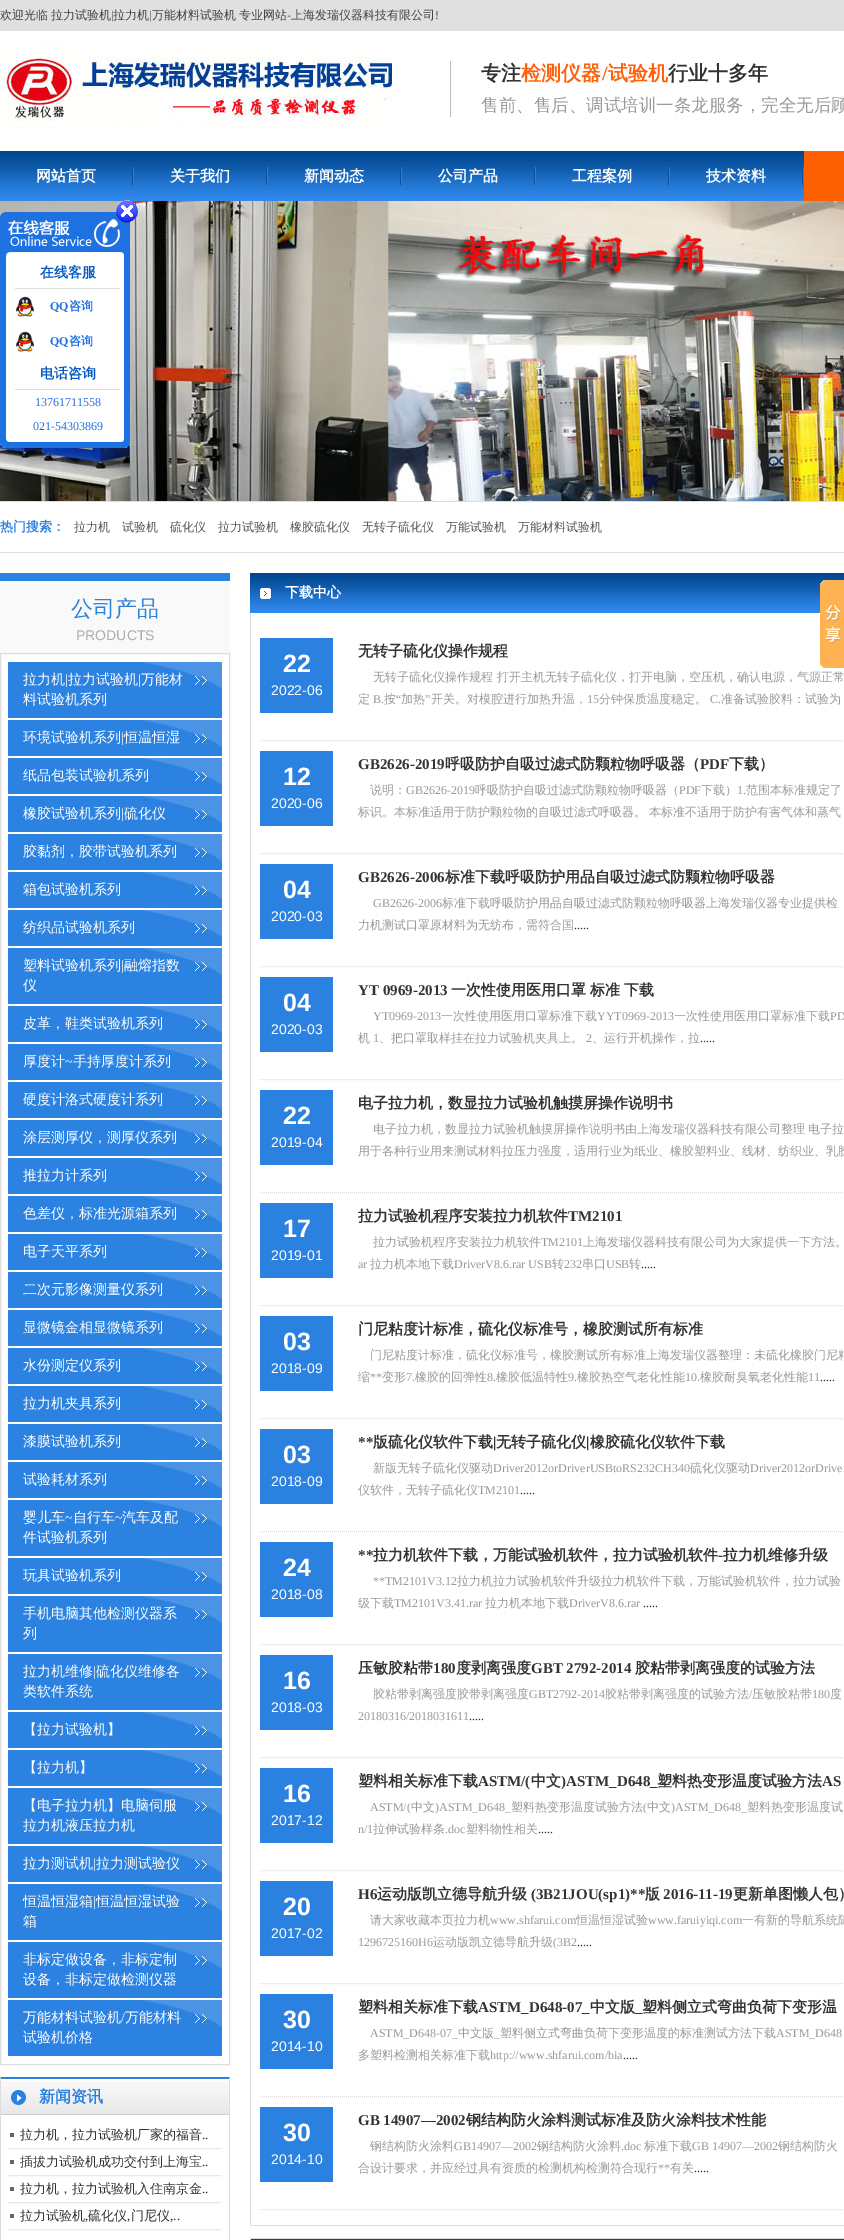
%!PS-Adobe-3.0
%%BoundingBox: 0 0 844 2240
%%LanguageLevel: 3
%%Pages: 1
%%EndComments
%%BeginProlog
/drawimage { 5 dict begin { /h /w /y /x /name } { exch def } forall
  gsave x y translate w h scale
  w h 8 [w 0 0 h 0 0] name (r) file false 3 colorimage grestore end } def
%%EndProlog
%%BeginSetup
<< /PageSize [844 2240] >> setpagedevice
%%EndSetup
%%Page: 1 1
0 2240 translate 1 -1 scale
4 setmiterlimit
1 setgray
0 0 844 2240 rectfill
0.878 setgray
0 0 844 30 rectfill
0.867 setgray
0 30 844 1 rectfill
(images/1.raw) 0 41 392 88 drawimage
0.733 setgray
450 61 1 56 rectfill
(images/2.raw) 0 151 804 50 drawimage
(images/3.raw) 132 167 2 18 drawimage
(images/3.raw) 266 167 2 18 drawimage
(images/3.raw) 400 167 2 18 drawimage
(images/3.raw) 534 167 2 18 drawimage
(images/3.raw) 668 167 2 18 drawimage
(images/3.raw) 802 167 2 18 drawimage
0.988 0.376 0.008 setrgbcolor
804 151 40 50 rectfill
(images/4.raw) 0 201 844 300 drawimage
(images/5.raw) 0 200 138 58 drawimage
(images/6.raw) 0 258 130 180 drawimage
0.867 setgray
15 288 105 1 rectfill
(images/7.raw) 15 296 20 22 drawimage
(images/7.raw) 15 331 20 22 drawimage
15 389 105 1 rectfill
(images/8.raw) 0 438 130 10 drawimage
0 501 844 1 rectfill
0 552 844 1 rectfill
(images/13.raw) 250 573 594 40 drawimage
(images/9.raw) 820 580 24 88 drawimage
0.976 setgray
0 581 230 72 rectfill
0.169 0.506 0.878 setrgbcolor
0 573 230 8 rectfill
0.867 setgray
0.5 653.5 229 1411 rectstroke
0.169 0.51 0.882 setrgbcolor
8 662 214 56 rectfill
(images/10.raw) 144 662 78 29 drawimage
8 720 214 36 rectfill
(images/10.raw) 144 720 78 29 drawimage
8 758 214 36 rectfill
(images/10.raw) 144 758 78 29 drawimage
8 796 214 36 rectfill
(images/10.raw) 144 796 78 29 drawimage
8 834 214 36 rectfill
(images/10.raw) 144 834 78 29 drawimage
8 872 214 36 rectfill
(images/10.raw) 144 872 78 29 drawimage
8 910 214 36 rectfill
(images/10.raw) 144 910 78 29 drawimage
8 948 214 56 rectfill
(images/10.raw) 144 948 78 29 drawimage
8 1006 214 36 rectfill
(images/10.raw) 144 1006 78 29 drawimage
8 1044 214 36 rectfill
(images/10.raw) 144 1044 78 29 drawimage
8 1082 214 36 rectfill
(images/10.raw) 144 1082 78 29 drawimage
8 1120 214 36 rectfill
(images/10.raw) 144 1120 78 29 drawimage
8 1158 214 36 rectfill
(images/10.raw) 144 1158 78 29 drawimage
8 1196 214 36 rectfill
(images/10.raw) 144 1196 78 29 drawimage
8 1234 214 36 rectfill
(images/10.raw) 144 1234 78 29 drawimage
8 1272 214 36 rectfill
(images/10.raw) 144 1272 78 29 drawimage
8 1310 214 36 rectfill
(images/10.raw) 144 1310 78 29 drawimage
8 1348 214 36 rectfill
(images/10.raw) 144 1348 78 29 drawimage
8 1386 214 36 rectfill
(images/10.raw) 144 1386 78 29 drawimage
8 1424 214 36 rectfill
(images/10.raw) 144 1424 78 29 drawimage
8 1462 214 36 rectfill
(images/10.raw) 144 1462 78 29 drawimage
8 1500 214 56 rectfill
(images/10.raw) 144 1500 78 29 drawimage
8 1558 214 36 rectfill
(images/10.raw) 144 1558 78 29 drawimage
8 1596 214 56 rectfill
(images/10.raw) 144 1596 78 29 drawimage
8 1654 214 56 rectfill
(images/10.raw) 144 1654 78 29 drawimage
8 1712 214 36 rectfill
(images/10.raw) 144 1712 78 29 drawimage
8 1750 214 36 rectfill
(images/10.raw) 144 1750 78 29 drawimage
8 1788 214 56 rectfill
(images/10.raw) 144 1788 78 29 drawimage
8 1846 214 36 rectfill
(images/10.raw) 144 1846 78 29 drawimage
8 1884 214 56 rectfill
(images/10.raw) 144 1884 78 29 drawimage
8 1942 214 56 rectfill
(images/10.raw) 144 1942 78 29 drawimage
8 2000 214 56 rectfill
(images/10.raw) 144 2000 78 29 drawimage
(images/11.raw) 1 2081 228 34 drawimage
0.169 0.506 0.878 setrgbcolor
newpath 0 2077 moveto 230 2077 lineto 229 2079 lineto 1 2079 lineto closepath fill
0.867 setgray
newpath 230 2077 moveto 230 2115 lineto 229 2115 lineto 229 2079 lineto closepath fill
newpath 0 2115 moveto 0 2077 lineto 1 2079 lineto 1 2115 lineto closepath fill
(images/12.raw) 11 2090 15 15 drawimage
229 2115 1 125 rectfill
0 2115 1 125 rectfill
0.4 setgray
10 2133 4 4 rectfill
0.867 setgray
[1 1] 0 setdash
newpath 8 2148.5 moveto 222 2148.5 lineto stroke
0.4 setgray
10 2160 4 4 rectfill
0.867 setgray
newpath 8 2175.5 moveto 222 2175.5 lineto stroke
0.4 setgray
10 2187 4 4 rectfill
0.867 setgray
newpath 8 2202.5 moveto 222 2202.5 lineto stroke
0.4 setgray
10 2214 4 4 rectfill
0.867 setgray
newpath 8 2229.5 moveto 222 2229.5 lineto stroke
(images/14.raw) 260 588 11 11 drawimage
250 2225 594 1 rectfill
250 613 1 1613 rectfill
newpath 260 740.5 moveto 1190 740.5 lineto stroke
0.169 0.506 0.878 setrgbcolor
260 638 73 75 rectfill
0.867 setgray
newpath 260 853.5 moveto 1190 853.5 lineto stroke
0.169 0.506 0.878 setrgbcolor
260 751 73 75 rectfill
0.867 setgray
newpath 260 966.5 moveto 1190 966.5 lineto stroke
0.169 0.506 0.878 setrgbcolor
260 864 73 75 rectfill
0.867 setgray
newpath 260 1079.5 moveto 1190 1079.5 lineto stroke
0.169 0.506 0.878 setrgbcolor
260 977 73 75 rectfill
0.867 setgray
newpath 260 1192.5 moveto 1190 1192.5 lineto stroke
0.169 0.506 0.878 setrgbcolor
260 1090 73 75 rectfill
0.867 setgray
newpath 260 1305.5 moveto 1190 1305.5 lineto stroke
0.169 0.506 0.878 setrgbcolor
260 1203 73 75 rectfill
0.867 setgray
newpath 260 1418.5 moveto 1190 1418.5 lineto stroke
0.169 0.506 0.878 setrgbcolor
260 1316 73 75 rectfill
0.867 setgray
newpath 260 1531.5 moveto 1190 1531.5 lineto stroke
0.169 0.506 0.878 setrgbcolor
260 1429 73 75 rectfill
0.867 setgray
newpath 260 1644.5 moveto 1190 1644.5 lineto stroke
0.169 0.506 0.878 setrgbcolor
260 1542 73 75 rectfill
0.867 setgray
newpath 260 1757.5 moveto 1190 1757.5 lineto stroke
0.169 0.506 0.878 setrgbcolor
260 1655 73 75 rectfill
0.867 setgray
newpath 260 1870.5 moveto 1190 1870.5 lineto stroke
0.169 0.506 0.878 setrgbcolor
260 1768 73 75 rectfill
0.867 setgray
newpath 260 1983.5 moveto 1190 1983.5 lineto stroke
0.169 0.506 0.878 setrgbcolor
260 1881 73 75 rectfill
0.867 setgray
newpath 260 2096.5 moveto 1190 2096.5 lineto stroke
0.169 0.506 0.878 setrgbcolor
260 1994 73 75 rectfill
0.867 setgray
newpath 260 2209.5 moveto 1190 2209.5 lineto stroke
0.169 0.506 0.878 setrgbcolor
260 2107 73 75 rectfill
0.867 setgray
[] 0 setdash
250.5 2238.5 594 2 rectstroke
0.004 0.286 0.576 setrgbcolor
251 2239 593 1 rectfill
/WenQuanYiZenHei-Medium [12 0 0 -12 0 0] selectfont
0.267 setgray
0 19 moveto -1 0 32 (欢迎光临 拉力试验机) widthshow
/LiberationSerif-Regular [12 0 0 -12 0 0] selectfont
111 19 moveto (|) show
/WenQuanYiZenHei-Medium [12 0 0 -12 0 0] selectfont
113 19 moveto (拉力机) show
/LiberationSerif-Regular [12 0 0 -12 0 0] selectfont
149 19 moveto (|) show
/WenQuanYiZenHei-Medium [12 0 0 -12 0 0] selectfont
152 19 moveto -1 0 32 (万能材料试验机 专业网站) widthshow
/LiberationSerif-Regular [12 0 0 -12 0 0] selectfont
287 19 moveto (-) show
/WenQuanYiZenHei-Medium [12 0 0 -12 0 0] selectfont
291 19 moveto (上海发瑞仪器科技有限公司) show
/LiberationSerif-Regular [12 0 0 -12 0 0] selectfont
435 19 moveto (!) show
/WenQuanYiZenHei-Bold [20 0 0 -20 0 0] selectfont
0.2 setgray
481 80 moveto (专注) show
1 0.376 0.031 setrgbcolor
521 80 moveto (检测仪器) show
/LiberationSerif-Bold [20 0 0 -20 0 0] selectfont
602 80 moveto (/) show
/WenQuanYiZenHei-Bold [20 0 0 -20 0 0] selectfont
608 80 moveto (试验机) show
0.2 setgray
668 80 moveto (行业十多年) show
/WenQuanYiZenHei-Medium [17.5 0 0 -17.5 0 0] selectfont
0.6 setgray
481 111 moveto (售前、售后、调试培训一条龙服务，完全无后顾) show
/WenQuanYiZenHei-Bold [15 0 0 -15 0 0] selectfont
1 setgray
36 181 moveto (网站首页) show
170 181 moveto (关于我们) show
304 181 moveto (新闻动态) show
438 181 moveto (公司产品) show
572 181 moveto (工程案例) show
706 181 moveto (技术资料) show
/WenQuanYiZenHei-Bold [14 0 0 -14 0 0] selectfont
0.024 0.357 0.761 setrgbcolor
40 277 moveto (在线客服) show
/LiberationSerif-Bold [12 0 0 -12 0 0] selectfont
0.118 0.443 0.882 setrgbcolor
50 310 moveto (QQ) show
/WenQuanYiZenHei-Bold [12 0 0 -12 0 0] selectfont
69 310 moveto (咨询) show
/LiberationSerif-Bold [12 0 0 -12 0 0] selectfont
50 345 moveto (QQ) show
/WenQuanYiZenHei-Bold [12 0 0 -12 0 0] selectfont
69 345 moveto (咨询) show
/WenQuanYiZenHei-Bold [14 0 0 -14 0 0] selectfont
0.024 0.357 0.761 setrgbcolor
40 378 moveto (电话咨询) show
/LiberationSerif-Regular [12 0 0 -12 0 0] selectfont
0.118 0.443 0.882 setrgbcolor
35 406 moveto (13761711558) show
33 430 moveto (021-54303869) show
/WenQuanYiZenHei-Bold [13 0 0 -13 0 0] selectfont
0.169 0.506 0.878 setrgbcolor
0 531 moveto (热门搜索：) show
/WenQuanYiZenHei-Medium [12 0 0 -12 0 0] selectfont
0.333 setgray
74 531 moveto (拉力机) show
122 531 moveto (试验机) show
170 531 moveto (硫化仪) show
218 531 moveto (拉力试验机) show
290 531 moveto (橡胶硫化仪) show
362 531 moveto (无转子硫化仪) show
446 531 moveto (万能试验机) show
518 531 moveto (万能材料试验机) show
/WenQuanYiZenHei-Medium [22 0 0 -22 0 0] selectfont
0.169 0.506 0.878 setrgbcolor
71 616 moveto (公司产品) show
/LiberationSans-Regular [14 0 0 -14 0 0] selectfont
0.682 0.678 0.678 setrgbcolor
76 640 moveto (PRODUCTS) show
/WenQuanYiZenHei-Medium [14 0 0 -14 0 0] selectfont
1 setgray
23 684 moveto (拉力机) show
/LiberationSerif-Regular [14 0 0 -14 0 0] selectfont
65 684 moveto (|) show
/WenQuanYiZenHei-Medium [14 0 0 -14 0 0] selectfont
68 684 moveto (拉力试验机) show
/LiberationSerif-Regular [14 0 0 -14 0 0] selectfont
138 684 moveto (|) show
/WenQuanYiZenHei-Medium [14 0 0 -14 0 0] selectfont
141 684 moveto (万能材) show
23 704 moveto (料试验机系列) show
23 742 moveto (环境试验机系列) show
/LiberationSerif-Regular [14 0 0 -14 0 0] selectfont
121 742 moveto (|) show
/WenQuanYiZenHei-Medium [14 0 0 -14 0 0] selectfont
124 742 moveto (恒温恒湿) show
23 780 moveto (纸品包装试验机系列) show
23 818 moveto (橡胶试验机系列) show
/LiberationSerif-Regular [14 0 0 -14 0 0] selectfont
121 818 moveto (|) show
/WenQuanYiZenHei-Medium [14 0 0 -14 0 0] selectfont
124 818 moveto (硫化仪) show
23 856 moveto (胶黏剂，胶带试验机系列) show
23 894 moveto (箱包试验机系列) show
23 932 moveto (纺织品试验机系列) show
23 970 moveto (塑料试验机系列) show
/LiberationSerif-Regular [14 0 0 -14 0 0] selectfont
121 970 moveto (|) show
/WenQuanYiZenHei-Medium [14 0 0 -14 0 0] selectfont
124 970 moveto (融熔指数) show
23 990 moveto (仪) show
23 1028 moveto (皮革，鞋类试验机系列) show
23 1066 moveto (厚度计) show
/LiberationSerif-Regular [14 0 0 -14 0 0] selectfont
65 1066 moveto (~) show
/WenQuanYiZenHei-Medium [14 0 0 -14 0 0] selectfont
73 1066 moveto (手持厚度计系列) show
23 1104 moveto (硬度计洛式硬度计系列) show
23 1142 moveto (涂层测厚仪，测厚仪系列) show
23 1180 moveto (推拉力计系列) show
23 1218 moveto (色差仪，标准光源箱系列) show
23 1256 moveto (电子天平系列) show
23 1294 moveto (二次元影像测量仪系列) show
23 1332 moveto (显微镜金相显微镜系列) show
23 1370 moveto (水份测定仪系列) show
23 1408 moveto (拉力机夹具系列) show
23 1446 moveto (漆膜试验机系列) show
23 1484 moveto (试验耗材系列) show
23 1522 moveto (婴儿车) show
/LiberationSerif-Regular [14 0 0 -14 0 0] selectfont
65 1522 moveto (~) show
/WenQuanYiZenHei-Medium [14 0 0 -14 0 0] selectfont
73 1522 moveto (自行车) show
/LiberationSerif-Regular [14 0 0 -14 0 0] selectfont
115 1522 moveto (~) show
/WenQuanYiZenHei-Medium [14 0 0 -14 0 0] selectfont
122 1522 moveto (汽车及配) show
23 1542 moveto (件试验机系列) show
23 1580 moveto (玩具试验机系列) show
23 1618 moveto (手机电脑其他检测仪器系) show
23 1638 moveto (列) show
23 1676 moveto (拉力机维修) show
/LiberationSerif-Regular [14 0 0 -14 0 0] selectfont
93 1676 moveto (|) show
/WenQuanYiZenHei-Medium [14 0 0 -14 0 0] selectfont
96 1676 moveto (硫化仪维修各) show
23 1696 moveto (类软件系统) show
23 1734 moveto (【拉力试验机】) show
23 1772 moveto (【拉力机】) show
23 1810 moveto (【电子拉力机】电脑伺服) show
23 1830 moveto (拉力机液压拉力机) show
23 1868 moveto (拉力测试机) show
/LiberationSerif-Regular [14 0 0 -14 0 0] selectfont
93 1868 moveto (|) show
/WenQuanYiZenHei-Medium [14 0 0 -14 0 0] selectfont
96 1868 moveto (拉力测试验仪) show
23 1906 moveto (恒温恒湿箱) show
/LiberationSerif-Regular [14 0 0 -14 0 0] selectfont
93 1906 moveto (|) show
/WenQuanYiZenHei-Medium [14 0 0 -14 0 0] selectfont
96 1906 moveto (恒温恒湿试验) show
23 1926 moveto (箱) show
23 1964 moveto (非标定做设备，非标定制) show
23 1984 moveto (设备，非标定做检测仪器) show
23 2022 moveto (万能材料试验机) show
/LiberationSerif-Regular [14 0 0 -14 0 0] selectfont
121 2022 moveto (/) show
/WenQuanYiZenHei-Medium [14 0 0 -14 0 0] selectfont
125 2022 moveto (万能材料) show
23 2042 moveto (试验机价格) show
/WenQuanYiZenHei-Bold [16 0 0 -16 0 0] selectfont
0.169 0.506 0.878 setrgbcolor
39 2102 moveto (新闻资讯) show
/WenQuanYiZenHei-Medium [13 0 0 -13 0 0] selectfont
0.2 setgray
20 2139 moveto (拉力机，拉力试验机厂家的福音) show
/LiberationSerif-Regular [13 0 0 -13 0 0] selectfont
202 2139 moveto (..) show
/WenQuanYiZenHei-Medium [13 0 0 -13 0 0] selectfont
20 2166 moveto (插拔力试验机成功交付到上海宝) show
/LiberationSerif-Regular [13 0 0 -13 0 0] selectfont
202 2166 moveto (..) show
/WenQuanYiZenHei-Medium [13 0 0 -13 0 0] selectfont
20 2193 moveto (拉力机，拉力试验机入住南京金) show
/LiberationSerif-Regular [13 0 0 -13 0 0] selectfont
202 2193 moveto (..) show
/WenQuanYiZenHei-Medium [13 0 0 -13 0 0] selectfont
20 2220 moveto (拉力试验机) show
/LiberationSerif-Regular [13 0 0 -13 0 0] selectfont
85 2220 moveto (,) show
/WenQuanYiZenHei-Medium [13 0 0 -13 0 0] selectfont
88 2220 moveto (硫化仪) show
/LiberationSerif-Regular [13 0 0 -13 0 0] selectfont
127 2220 moveto (,) show
/WenQuanYiZenHei-Medium [13 0 0 -13 0 0] selectfont
131 2220 moveto (门尼仪) show
/LiberationSerif-Regular [13 0 0 -13 0 0] selectfont
170 2220 moveto (,..) show
/WenQuanYiZenHei-Bold [14 0 0 -14 0 0] selectfont
1 setgray
285 597 moveto (下载中心) show
/WenQuanYiZenHei-Bold [15 0 0 -15 0 0] selectfont
0.2 setgray
358 656 moveto (无转子硫化仪操作规程) show
/LiberationSans-Bold [25 0 0 -25 0 0] selectfont
1 setgray
283 672 moveto (22) show
/LiberationSans-Regular [14 0 0 -14 0 0] selectfont
271 695 moveto (2022-06) show
/WenQuanYiZenHei-Medium [12 0 0 -12 0 0] selectfont
0.6 setgray
373 681 moveto (无转子硫化仪操作规程 打开主机无转子硫化仪，打开电脑，空压机，确认电源，气源正常) show
358 703 moveto (定) show
/LiberationSerif-Regular [12 0 0 -12 0 0] selectfont
373 703 moveto (B.) show
/WenQuanYiZenHei-Medium [12 0 0 -12 0 0] selectfont
384 703 moveto (按) show
/LiberationSerif-Regular [12 0 0 -12 0 0] selectfont
396 703 moveto (“) show
/WenQuanYiZenHei-Medium [12 0 0 -12 0 0] selectfont
401 703 moveto (加热) show
/LiberationSerif-Regular [12 0 0 -12 0 0] selectfont
425 703 moveto (”) show
/WenQuanYiZenHei-Medium [12 0 0 -12 0 0] selectfont
431 703 moveto (开关。对模腔进行加热升温，) show
/LiberationSerif-Regular [12 0 0 -12 0 0] selectfont
587 703 moveto (15) show
/WenQuanYiZenHei-Medium [12 0 0 -12 0 0] selectfont
599 703 moveto (分钟保质温度稳定。) show
/LiberationSerif-Regular [12 0 0 -12 0 0] selectfont
710 703 moveto (C.) show
/WenQuanYiZenHei-Medium [12 0 0 -12 0 0] selectfont
721 703 moveto (准备试验胶料：试验为) show
/LiberationSerif-Bold [15 0 0 -15 0 0] selectfont
0.2 setgray
358 769 moveto (GB2626-2019) show
/WenQuanYiZenHei-Bold [15 0 0 -15 0 0] selectfont
445 769 moveto (呼吸防护自吸过滤式防颗粒物呼吸器（) show
/LiberationSerif-Bold [15 0 0 -15 0 0] selectfont
700 769 moveto (PDF) show
/WenQuanYiZenHei-Bold [15 0 0 -15 0 0] selectfont
729 769 moveto (下载）) show
/LiberationSans-Bold [25 0 0 -25 0 0] selectfont
1 setgray
283 785 moveto (12) show
/LiberationSans-Regular [14 0 0 -14 0 0] selectfont
271 808 moveto (2020-06) show
/WenQuanYiZenHei-Medium [12 0 0 -12 0 0] selectfont
0.6 setgray
370 794 moveto (说明：) show
/LiberationSerif-Regular [12 0 0 -12 0 0] selectfont
406 794 moveto (GB2626-2019) show
/WenQuanYiZenHei-Medium [12 0 0 -12 0 0] selectfont
475 794 moveto (呼吸防护自吸过滤式防颗粒物呼吸器（) show
/LiberationSerif-Regular [12 0 0 -12 0 0] selectfont
679 794 moveto (PDF) show
/WenQuanYiZenHei-Medium [12 0 0 -12 0 0] selectfont
701 794 moveto (下载）) show
/LiberationSerif-Regular [12 0 0 -12 0 0] selectfont
737 794 moveto (1.) show
/WenQuanYiZenHei-Medium [12 0 0 -12 0 0] selectfont
746 794 moveto (范围本标准规定了) show
358 816 moveto -1 0 32 (标识。本标准适用于防护颗粒物的自吸过滤式呼吸器。 本标准不适用于防护有害气体和蒸气) widthshow
/LiberationSerif-Bold [15 0 0 -15 0 0] selectfont
0.2 setgray
358 882 moveto (GB2626-2006) show
/WenQuanYiZenHei-Bold [15 0 0 -15 0 0] selectfont
445 882 moveto (标准下载呼吸防护用品自吸过滤式防颗粒物呼吸器) show
/LiberationSans-Bold [25 0 0 -25 0 0] selectfont
1 setgray
283 898 moveto (04) show
/LiberationSans-Regular [14 0 0 -14 0 0] selectfont
271 921 moveto (2020-03) show
/LiberationSerif-Regular [12 0 0 -12 0 0] selectfont
0.6 setgray
373 907 moveto (GB2626-2006) show
/WenQuanYiZenHei-Medium [12 0 0 -12 0 0] selectfont
442 907 moveto (标准下载呼吸防护用品自吸过滤式防颗粒物呼吸器上海发瑞仪器专业提供检) show
358 929 moveto (力机测试口罩原材料为无纺布，需符合国) show
/LiberationSerif-Regular [12 0 0 -12 0 0] selectfont
0.2 setgray
574 929 moveto (.....) show
/LiberationSerif-Bold [15 0 0 -15 0 0] selectfont
358 995 moveto (YT 0969-2013) show
/WenQuanYiZenHei-Bold [15 0 0 -15 0 0] selectfont
451 995 moveto (一次性使用医用口罩) show
590 995 moveto (标准) show
624 995 moveto (下载) show
/LiberationSans-Bold [25 0 0 -25 0 0] selectfont
1 setgray
283 1011 moveto (04) show
/LiberationSans-Regular [14 0 0 -14 0 0] selectfont
271 1034 moveto (2020-03) show
/LiberationSerif-Regular [12 0 0 -12 0 0] selectfont
0.6 setgray
373 1020 moveto (YT0969-2013) show
/WenQuanYiZenHei-Medium [12 0 0 -12 0 0] selectfont
441 1020 moveto (一次性使用医用口罩标准下载) show
/LiberationSerif-Regular [12 0 0 -12 0 0] selectfont
597 1020 moveto (YYT0969-2013) show
/WenQuanYiZenHei-Medium [12 0 0 -12 0 0] selectfont
674 1020 moveto (一次性使用医用口罩标准下载) show
/LiberationSerif-Regular [12 0 0 -12 0 0] selectfont
830 1020 moveto (PD) show
/WenQuanYiZenHei-Medium [12 0 0 -12 0 0] selectfont
358 1042 moveto (机) show
/LiberationSerif-Regular [12 0 0 -12 0 0] selectfont
373 1042 moveto (1) show
/WenQuanYiZenHei-Medium [12 0 0 -12 0 0] selectfont
379 1042 moveto (、把口罩取样挂在拉力试验机夹具上。) show
/LiberationSerif-Regular [12 0 0 -12 0 0] selectfont
586 1042 moveto (2) show
/WenQuanYiZenHei-Medium [12 0 0 -12 0 0] selectfont
592 1042 moveto (、运行开机操作，拉) show
/LiberationSerif-Regular [12 0 0 -12 0 0] selectfont
0.2 setgray
700 1042 moveto (.....) show
/WenQuanYiZenHei-Bold [15 0 0 -15 0 0] selectfont
358 1108 moveto (电子拉力机，数显拉力试验机触摸屏操作说明书) show
/LiberationSans-Bold [25 0 0 -25 0 0] selectfont
1 setgray
283 1124 moveto (22) show
/LiberationSans-Regular [14 0 0 -14 0 0] selectfont
271 1147 moveto (2019-04) show
/WenQuanYiZenHei-Medium [12 0 0 -12 0 0] selectfont
0.6 setgray
373 1133 moveto (电子拉力机，数显拉力试验机触摸屏操作说明书由上海发瑞仪器科技有限公司整理) show
808 1133 moveto (电子拉) show
358 1155 moveto (用于各种行业用来测试材料拉压力强度，适用行业为纸业、橡胶塑料业、线材、纺织业、乳胶) show
/WenQuanYiZenHei-Bold [15 0 0 -15 0 0] selectfont
0.2 setgray
358 1221 moveto (拉力试验机程序安装拉力机软件) show
/LiberationSerif-Bold [15 0 0 -15 0 0] selectfont
568 1221 moveto (TM2101) show
/LiberationSans-Bold [25 0 0 -25 0 0] selectfont
1 setgray
283 1237 moveto (17) show
/LiberationSans-Regular [14 0 0 -14 0 0] selectfont
271 1260 moveto (2019-01) show
/WenQuanYiZenHei-Medium [12 0 0 -12 0 0] selectfont
0.6 setgray
373 1246 moveto (拉力试验机程序安装拉力机软件) show
/LiberationSerif-Regular [12 0 0 -12 0 0] selectfont
541 1246 moveto (TM2101) show
/WenQuanYiZenHei-Medium [12 0 0 -12 0 0] selectfont
583 1246 moveto (上海发瑞仪器科技有限公司为大家提供一下方法。) show
/LiberationSerif-Regular [12 0 0 -12 0 0] selectfont
358 1268 moveto (ar) show
/WenQuanYiZenHei-Medium [12 0 0 -12 0 0] selectfont
370 1268 moveto (拉力机本地下载) show
/LiberationSerif-Regular [12 0 0 -12 0 0] selectfont
454 1268 moveto (DriverV8.6.rar USB) show
/WenQuanYiZenHei-Medium [12 0 0 -12 0 0] selectfont
552 1268 moveto (转) show
/LiberationSerif-Regular [12 0 0 -12 0 0] selectfont
564 1268 moveto (232) show
/WenQuanYiZenHei-Medium [12 0 0 -12 0 0] selectfont
582 1268 moveto (串口) show
/LiberationSerif-Regular [12 0 0 -12 0 0] selectfont
606 1268 moveto (USB) show
/WenQuanYiZenHei-Medium [12 0 0 -12 0 0] selectfont
629 1268 moveto (转) show
/LiberationSerif-Regular [12 0 0 -12 0 0] selectfont
0.2 setgray
641 1268 moveto (.....) show
/WenQuanYiZenHei-Bold [15 0 0 -15 0 0] selectfont
358 1334 moveto (门尼粘度计标准，硫化仪标准号，橡胶测试所有标准) show
/LiberationSans-Bold [25 0 0 -25 0 0] selectfont
1 setgray
283 1350 moveto (03) show
/LiberationSans-Regular [14 0 0 -14 0 0] selectfont
271 1373 moveto (2018-09) show
/WenQuanYiZenHei-Medium [12 0 0 -12 0 0] selectfont
0.6 setgray
370 1359 moveto (门尼粘度计标准，硫化仪标准号，橡胶测试所有标准上海发瑞仪器整理：未硫化橡胶门尼粘) show
358 1381 moveto (缩) show
/LiberationSerif-Regular [12 0 0 -12 0 0] selectfont
370 1381 moveto (**) show
/WenQuanYiZenHei-Medium [12 0 0 -12 0 0] selectfont
382 1381 moveto (变形) show
/LiberationSerif-Regular [12 0 0 -12 0 0] selectfont
406 1381 moveto (7.) show
/WenQuanYiZenHei-Medium [12 0 0 -12 0 0] selectfont
415 1381 moveto (橡胶的回弹性) show
/LiberationSerif-Regular [12 0 0 -12 0 0] selectfont
487 1381 moveto (8.) show
/WenQuanYiZenHei-Medium [12 0 0 -12 0 0] selectfont
496 1381 moveto (橡胶低温特性) show
/LiberationSerif-Regular [12 0 0 -12 0 0] selectfont
568 1381 moveto (9.) show
/WenQuanYiZenHei-Medium [12 0 0 -12 0 0] selectfont
577 1381 moveto (橡胶热空气老化性能) show
/LiberationSerif-Regular [12 0 0 -12 0 0] selectfont
685 1381 moveto (10.) show
/WenQuanYiZenHei-Medium [12 0 0 -12 0 0] selectfont
700 1381 moveto (橡胶耐臭氧老化性能) show
/LiberationSerif-Regular [12 0 0 -12 0 0] selectfont
808 1381 moveto (11) show
0.2 setgray
820 1381 moveto (.....) show
/LiberationSerif-Bold [15 0 0 -15 0 0] selectfont
358 1447 moveto (**) show
/WenQuanYiZenHei-Bold [15 0 0 -15 0 0] selectfont
373 1447 moveto (版硫化仪软件下载) show
/LiberationSerif-Bold [15 0 0 -15 0 0] selectfont
493 1447 moveto (|) show
/WenQuanYiZenHei-Bold [15 0 0 -15 0 0] selectfont
496 1447 moveto (无转子硫化仪) show
/LiberationSerif-Bold [15 0 0 -15 0 0] selectfont
586 1447 moveto (|) show
/WenQuanYiZenHei-Bold [15 0 0 -15 0 0] selectfont
590 1447 moveto (橡胶硫化仪软件下载) show
/LiberationSans-Bold [25 0 0 -25 0 0] selectfont
1 setgray
283 1463 moveto (03) show
/LiberationSans-Regular [14 0 0 -14 0 0] selectfont
271 1486 moveto (2018-09) show
/WenQuanYiZenHei-Medium [12 0 0 -12 0 0] selectfont
0.6 setgray
373 1472 moveto (新版无转子硫化仪驱动) show
/LiberationSerif-Regular [12 0 0 -12 0 0] selectfont
493 1472 moveto (Driver2012orDriverUSBtoRS232CH340) show
/WenQuanYiZenHei-Medium [12 0 0 -12 0 0] selectfont
690 1472 moveto (硫化仪驱动) show
/LiberationSerif-Regular [12 0 0 -12 0 0] selectfont
750 1472 moveto (Driver2012orDriver) show
/WenQuanYiZenHei-Medium [12 0 0 -12 0 0] selectfont
358 1494 moveto (仪软件，无转子硫化仪) show
/LiberationSerif-Regular [12 0 0 -12 0 0] selectfont
478 1494 moveto (TM2101) show
0.2 setgray
520 1494 moveto (.....) show
/LiberationSerif-Bold [15 0 0 -15 0 0] selectfont
358 1560 moveto (**) show
/WenQuanYiZenHei-Bold [15 0 0 -15 0 0] selectfont
373 1560 moveto (拉力机软件下载，万能试验机软件，拉力试验机软件) show
723 1560 moveto (拉力机维修升级) show
/LiberationSerif-Bold [15 0 0 -15 0 0] selectfont
718 1560 moveto (-) show
/LiberationSans-Bold [25 0 0 -25 0 0] selectfont
1 setgray
283 1576 moveto (24) show
/LiberationSans-Regular [14 0 0 -14 0 0] selectfont
271 1599 moveto (2018-08) show
/LiberationSerif-Regular [12 0 0 -12 0 0] selectfont
0.6 setgray
373 1585 moveto (**TM2101V3.12) show
/WenQuanYiZenHei-Medium [12 0 0 -12 0 0] selectfont
457 1585 moveto (拉力机拉力试验机软件升级拉力机软件下载，万能试验机软件，拉力试验) show
358 1607 moveto (级下载) show
/LiberationSerif-Regular [12 0 0 -12 0 0] selectfont
394 1607 moveto (TM2101V3.41.rar) show
/WenQuanYiZenHei-Medium [12 0 0 -12 0 0] selectfont
485 1607 moveto (拉力机本地下载) show
/LiberationSerif-Regular [12 0 0 -12 0 0] selectfont
569 1607 moveto (DriverV8.6.rar) show
0.2 setgray
643 1607 moveto (.....) show
/WenQuanYiZenHei-Bold [15 0 0 -15 0 0] selectfont
358 1673 moveto (压敏胶粘带) show
/LiberationSerif-Bold [15 0 0 -15 0 0] selectfont
433 1673 moveto (180) show
/WenQuanYiZenHei-Bold [15 0 0 -15 0 0] selectfont
456 1673 moveto (度剥离强度) show
/LiberationSerif-Bold [15 0 0 -15 0 0] selectfont
531 1673 moveto (GBT 2792-2014) show
/WenQuanYiZenHei-Bold [15 0 0 -15 0 0] selectfont
635 1673 moveto (胶粘带剥离强度的试验方法) show
/LiberationSans-Bold [25 0 0 -25 0 0] selectfont
1 setgray
283 1689 moveto (16) show
/LiberationSans-Regular [14 0 0 -14 0 0] selectfont
271 1712 moveto (2018-03) show
/WenQuanYiZenHei-Medium [12 0 0 -12 0 0] selectfont
0.6 setgray
373 1698 moveto (胶粘带剥离强度胶带剥离强度) show
/LiberationSerif-Regular [12 0 0 -12 0 0] selectfont
529 1698 moveto (GBT2792-2014) show
/WenQuanYiZenHei-Medium [12 0 0 -12 0 0] selectfont
605 1698 moveto (胶粘带剥离强度的试验方法) show
/LiberationSerif-Regular [12 0 0 -12 0 0] selectfont
749 1698 moveto (/) show
/WenQuanYiZenHei-Medium [12 0 0 -12 0 0] selectfont
752 1698 moveto (压敏胶粘带) show
/LiberationSerif-Regular [12 0 0 -12 0 0] selectfont
812 1698 moveto (180) show
/WenQuanYiZenHei-Medium [12 0 0 -12 0 0] selectfont
830 1698 moveto (度) show
/LiberationSerif-Regular [12 0 0 -12 0 0] selectfont
358 1720 moveto (20180316/2018031611) show
0.2 setgray
469 1720 moveto (.....) show
/WenQuanYiZenHei-Bold [15 0 0 -15 0 0] selectfont
358 1786 moveto (塑料相关标准下载) show
/LiberationSerif-Bold [15 0 0 -15 0 0] selectfont
478 1786 moveto (ASTM/\() show
/WenQuanYiZenHei-Bold [15 0 0 -15 0 0] selectfont
531 1786 moveto (中文) show
/LiberationSerif-Bold [15 0 0 -15 0 0] selectfont
561 1786 moveto (\)ASTM_D648_) show
/WenQuanYiZenHei-Bold [15 0 0 -15 0 0] selectfont
657 1786 moveto (塑料热变形温度试验方法) show
/LiberationSerif-Bold [15 0 0 -15 0 0] selectfont
822 1786 moveto (AS) show
/LiberationSans-Bold [25 0 0 -25 0 0] selectfont
1 setgray
283 1802 moveto (16) show
/LiberationSans-Regular [14 0 0 -14 0 0] selectfont
271 1825 moveto (2017-12) show
/LiberationSerif-Regular [12 0 0 -12 0 0] selectfont
0.6 setgray
370 1811 moveto (ASTM/\() show
/WenQuanYiZenHei-Medium [12 0 0 -12 0 0] selectfont
411 1811 moveto (中文) show
/LiberationSerif-Regular [12 0 0 -12 0 0] selectfont
435 1811 moveto (\)ASTM_D648_) show
/WenQuanYiZenHei-Medium [12 0 0 -12 0 0] selectfont
511 1811 moveto (塑料热变形温度试验方法) show
/LiberationSerif-Regular [12 0 0 -12 0 0] selectfont
643 1811 moveto (\() show
/WenQuanYiZenHei-Medium [12 0 0 -12 0 0] selectfont
647 1811 moveto (中文) show
/LiberationSerif-Regular [12 0 0 -12 0 0] selectfont
671 1811 moveto (\)ASTM_D648_) show
/WenQuanYiZenHei-Medium [12 0 0 -12 0 0] selectfont
747 1811 moveto (塑料热变形温度试) show
/LiberationSerif-Regular [12 0 0 -12 0 0] selectfont
358 1833 moveto (n/1) show
/WenQuanYiZenHei-Medium [12 0 0 -12 0 0] selectfont
373 1833 moveto (拉伸试验样条) show
/LiberationSerif-Regular [12 0 0 -12 0 0] selectfont
445 1833 moveto (.doc) show
/WenQuanYiZenHei-Medium [12 0 0 -12 0 0] selectfont
466 1833 moveto (塑料物性相关) show
/LiberationSerif-Regular [12 0 0 -12 0 0] selectfont
0.2 setgray
538 1833 moveto (.....) show
/LiberationSerif-Bold [15 0 0 -15 0 0] selectfont
358 1899 moveto (H6) show
/WenQuanYiZenHei-Bold [15 0 0 -15 0 0] selectfont
377 1899 moveto (运动版凯立德导航升级) show
/LiberationSerif-Bold [15 0 0 -15 0 0] selectfont
531 1899 moveto (\(3B21JOU\(sp1\)**) show
/WenQuanYiZenHei-Bold [15 0 0 -15 0 0] selectfont
645 1899 moveto (版) show
/LiberationSerif-Bold [15 0 0 -15 0 0] selectfont
663 1899 moveto (2016-11-19) show
/WenQuanYiZenHei-Bold [15 0 0 -15 0 0] selectfont
733 1899 moveto (更新单图懒人包）) show
/LiberationSans-Bold [25 0 0 -25 0 0] selectfont
1 setgray
283 1915 moveto (20) show
/LiberationSans-Regular [14 0 0 -14 0 0] selectfont
271 1938 moveto (2017-02) show
/WenQuanYiZenHei-Medium [12 0 0 -12 0 0] selectfont
0.6 setgray
370 1924 moveto (请大家收藏本页拉力机) show
/LiberationSerif-Regular [12 0 0 -12 0 0] selectfont
490 1924 moveto (www.shfarui.com) show
/WenQuanYiZenHei-Medium [12 0 0 -12 0 0] selectfont
576 1924 moveto (恒温恒湿试验) show
/LiberationSerif-Regular [12 0 0 -12 0 0] selectfont
648 1924 moveto (www.faruiyiqi.com) show
/WenQuanYiZenHei-Medium [12 0 0 -12 0 0] selectfont
742 1924 moveto (一有新的导航系统随) show
/LiberationSerif-Regular [12 0 0 -12 0 0] selectfont
358 1946 moveto (1296725160H6) show
/WenQuanYiZenHei-Medium [12 0 0 -12 0 0] selectfont
433 1946 moveto (运动版凯立德导航升级) show
/LiberationSerif-Regular [12 0 0 -12 0 0] selectfont
553 1946 moveto (\(3B2) show
0.2 setgray
577 1946 moveto (.....) show
/WenQuanYiZenHei-Bold [15 0 0 -15 0 0] selectfont
358 2012 moveto (塑料相关标准下载) show
/LiberationSerif-Bold [15 0 0 -15 0 0] selectfont
478 2012 moveto (ASTM_D648-07_) show
/WenQuanYiZenHei-Bold [15 0 0 -15 0 0] selectfont
590 2012 moveto (中文版) show
/LiberationSerif-Bold [15 0 0 -15 0 0] selectfont
635 2012 moveto (_) show
/WenQuanYiZenHei-Bold [15 0 0 -15 0 0] selectfont
642 2012 moveto -1 0 32 (塑料侧立式弯曲负荷下变形温) widthshow
/LiberationSans-Bold [25 0 0 -25 0 0] selectfont
1 setgray
283 2028 moveto (30) show
/LiberationSans-Regular [14 0 0 -14 0 0] selectfont
271 2051 moveto (2014-10) show
/LiberationSerif-Regular [12 0 0 -12 0 0] selectfont
0.6 setgray
370 2037 moveto (ASTM_D648-07_) show
/WenQuanYiZenHei-Medium [12 0 0 -12 0 0] selectfont
458 2037 moveto (中文版) show
/LiberationSerif-Regular [12 0 0 -12 0 0] selectfont
494 2037 moveto (_) show
/WenQuanYiZenHei-Medium [12 0 0 -12 0 0] selectfont
500 2037 moveto (塑料侧立式弯曲负荷下变形温度的标准测试方法下载) show
/LiberationSerif-Regular [12 0 0 -12 0 0] selectfont
776 2037 moveto (ASTM_D648) show
/WenQuanYiZenHei-Medium [12 0 0 -12 0 0] selectfont
358 2059 moveto (多塑料检测相关标准下载) show
/LiberationSerif-Regular [12 0 0 -12 0 0] selectfont
490 2059 moveto (http://www.shfarui.com/bia) show
0.2 setgray
623 2059 moveto (.....) show
/LiberationSerif-Bold [15 0 0 -15 0 0] selectfont
358 2125 moveto (GB 14907—2002) show
/WenQuanYiZenHei-Bold [15 0 0 -15 0 0] selectfont
466 2125 moveto (钢结构防火涂料测试标准及防火涂料技术性能) show
/LiberationSans-Bold [25 0 0 -25 0 0] selectfont
1 setgray
283 2141 moveto (30) show
/LiberationSans-Regular [14 0 0 -14 0 0] selectfont
271 2164 moveto (2014-10) show
/WenQuanYiZenHei-Medium [12 0 0 -12 0 0] selectfont
0.6 setgray
370 2150 moveto (钢结构防火涂料) show
/LiberationSerif-Regular [12 0 0 -12 0 0] selectfont
454 2150 moveto (GB14907—2002) show
/WenQuanYiZenHei-Medium [12 0 0 -12 0 0] selectfont
537 2150 moveto (钢结构防火涂料) show
/LiberationSerif-Regular [12 0 0 -12 0 0] selectfont
621 2150 moveto (.doc) show
/WenQuanYiZenHei-Medium [12 0 0 -12 0 0] selectfont
644 2150 moveto (标准下载) show
/LiberationSerif-Regular [12 0 0 -12 0 0] selectfont
692 2150 moveto (GB 14907—2002) show
/WenQuanYiZenHei-Medium [12 0 0 -12 0 0] selectfont
778 2150 moveto (钢结构防火) show
358 2172 moveto (合设计要求，并应经过具有资质的检测机构检测符合现行) show
/LiberationSerif-Regular [12 0 0 -12 0 0] selectfont
658 2172 moveto (**) show
/WenQuanYiZenHei-Medium [12 0 0 -12 0 0] selectfont
670 2172 moveto (有关) show
/LiberationSerif-Regular [12 0 0 -12 0 0] selectfont
0.2 setgray
694 2172 moveto (.....) show
showpage
%%EOF
